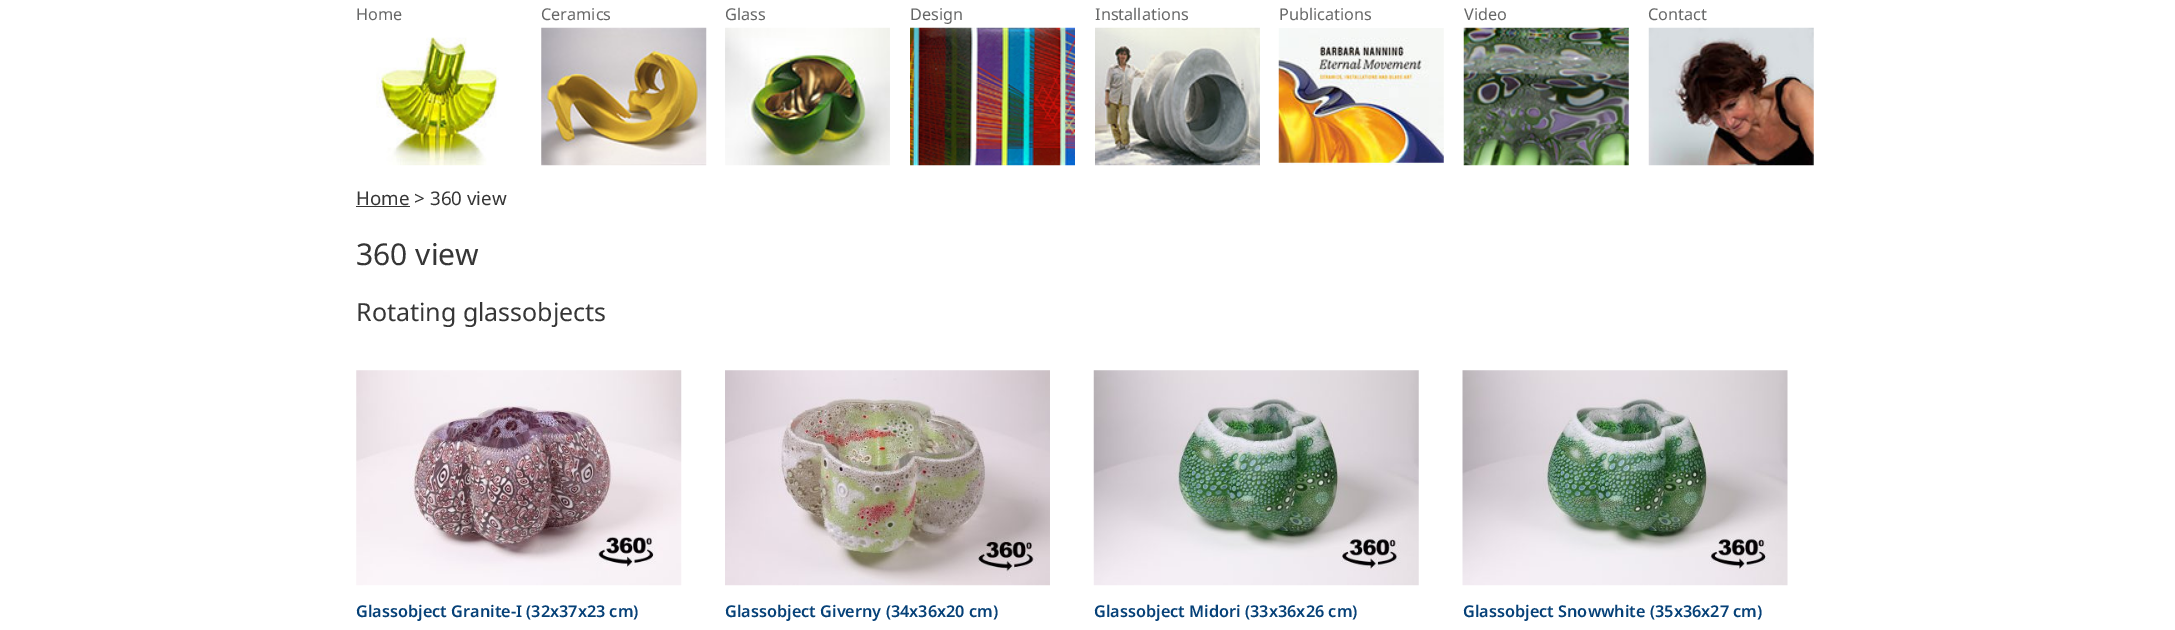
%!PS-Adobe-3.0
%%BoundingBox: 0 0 2175 630
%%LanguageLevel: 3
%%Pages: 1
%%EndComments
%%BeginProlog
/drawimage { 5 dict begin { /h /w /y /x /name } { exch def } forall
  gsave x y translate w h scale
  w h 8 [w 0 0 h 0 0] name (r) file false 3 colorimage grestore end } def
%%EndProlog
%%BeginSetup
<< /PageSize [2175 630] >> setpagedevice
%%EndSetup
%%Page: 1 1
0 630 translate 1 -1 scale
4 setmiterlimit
1 setgray
0 0 2175 630 rectfill
(images/1.raw) 376 37 123 129 drawimage
(images/2.raw) 541 27 166 139 drawimage
(images/3.raw) 725 27 165 139 drawimage
(images/4.raw) 910 27 165 139 drawimage
(images/5.raw) 1095 27 165 139 drawimage
(images/6.raw) 1278 28 166 138 drawimage
(images/7.raw) 1463 27 166 139 drawimage
(images/8.raw) 1648 27 166 139 drawimage
0.212 setgray
356 206 54 1 rectfill
(images/9.raw) 356 370 326 216 drawimage
(images/10.raw) 725 370 325 216 drawimage
(images/11.raw) 1093 370 326 216 drawimage
(images/12.raw) 1462 370 326 216 drawimage
/NotoSans-Regular [16.25 0 0 -16.25 0 0] selectfont
0.4 0.404 0.404 setrgbcolor
356 20 moveto (Home) show
541 20 moveto (Ceramics) show
725 20 moveto (Glass) show
910 20 moveto (Design) show
1095 20 moveto (Installations) show
1279 20 moveto (Publications) show
1464 20 moveto (Video) show
1648 20 moveto (Contact) show
/NotoSans-Regular [18.75 0 0 -18.75 0 0] selectfont
0.212 setgray
356 205 moveto (Home > 360 view) show
/NotoSans-Regular [30 0 0 -30 0 0] selectfont
356 265 moveto (360 view) show
/NotoSans-Regular [25 0 0 -25 0 0] selectfont
356 321 moveto (Rotating glassobjects) show
/NotoSans-SemiBold [16.25 0 0 -16.25 0 0] selectfont
0.024 0.255 0.471 setrgbcolor
356 617 moveto (Glassobject Granite-I \(32x37x23 cm\)) show
725 617 moveto (Glassobject Giverny \(34x36x20 cm\)) show
1094 617 moveto (Glassobject Midori \(33x36x26 cm\)) show
1463 617 moveto (Glassobject Snowwhite \(35x36x27 cm\)) show
showpage
%%EOF
